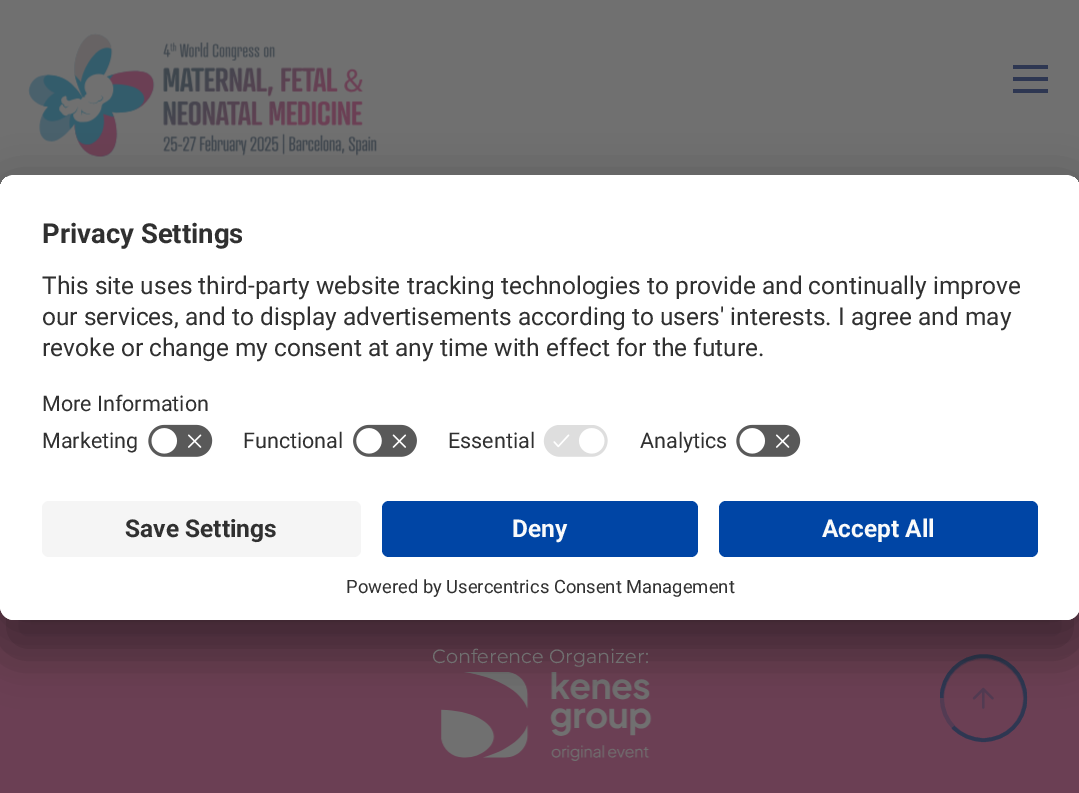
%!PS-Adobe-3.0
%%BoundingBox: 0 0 1079 793
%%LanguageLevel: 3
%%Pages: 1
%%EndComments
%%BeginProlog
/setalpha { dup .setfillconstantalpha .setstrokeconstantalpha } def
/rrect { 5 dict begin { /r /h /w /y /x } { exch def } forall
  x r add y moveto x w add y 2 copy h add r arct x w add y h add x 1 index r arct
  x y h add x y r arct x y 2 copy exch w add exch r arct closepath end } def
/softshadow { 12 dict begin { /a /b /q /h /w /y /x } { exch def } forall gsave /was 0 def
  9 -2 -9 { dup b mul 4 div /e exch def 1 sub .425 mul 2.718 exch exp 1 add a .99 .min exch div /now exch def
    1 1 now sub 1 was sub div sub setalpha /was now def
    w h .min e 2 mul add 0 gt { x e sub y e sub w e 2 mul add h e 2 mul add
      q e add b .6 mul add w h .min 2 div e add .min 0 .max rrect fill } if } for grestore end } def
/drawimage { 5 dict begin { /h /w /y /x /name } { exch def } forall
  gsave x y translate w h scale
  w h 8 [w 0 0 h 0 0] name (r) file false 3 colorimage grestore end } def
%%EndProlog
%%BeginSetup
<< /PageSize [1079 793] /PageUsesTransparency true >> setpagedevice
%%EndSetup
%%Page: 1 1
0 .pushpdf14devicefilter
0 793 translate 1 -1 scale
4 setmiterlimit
0.42 0.247 0.329 setrgbcolor
0 0 1079 793 rectfill
0.439 setgray
0 0 1079 189 rectfill
(images/1.raw) 28 33 349 124 drawimage
0.18 0.216 0.322 setrgbcolor
1013 89 35 4 rectfill
1013 65 35 4 rectfill
1013 77 35 4 rectfill
(images/5.raw) 441 672 211 89 drawimage
0.325 0.231 0.325 setrgbcolor
4 setlinewidth
newpath 983.5 698.5 41.5 0 360 arc closepath stroke
(images/6.raw) 972 687 22 22 drawimage
gsave
newpath 940 742 moveto 940 654.5 lineto 1027 654.5 lineto 1027 742 lineto closepath clip newpath
0.18 0.216 0.322 setrgbcolor
3.5 setlinewidth
newpath 941.5 698 moveto 941.5 675 960.5 656 983.5 656 curveto 1006.5 656 1025.5 675 1025.5 698 curveto 1025.5 721.5 1006.5 740 983.5 740 curveto 971.5 740 960.5 735 953 727 curveto stroke
grestore
0 setgray
0 210 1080 445 14 24.5 0.3 softshadow
0 184 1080 444 14 23 0.22 softshadow
1 setgray
0 175 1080 445 14 rrect fill
gsave
0 175 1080 445 14 rrect clip newpath
newpath 14 175 moveto 1066 175 lineto 1073.5 175 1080 181.5 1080 189 curveto 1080 487 lineto 0 487 lineto 0 189 lineto 0 181.5 6.5 175 14 175 curveto closepath clip newpath
0 177 1079 310 rectfill
0 177 1079 240 rectfill
grestore
(images/2.raw) 148 424 65 33 drawimage
(images/3.raw) 353 424 64 33 drawimage
(images/4.raw) 543 425 65 32 drawimage
(images/2.raw) 736 424 65 33 drawimage
newpath 0 487 moveto 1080 487 lineto 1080 606 lineto 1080 613.5 1073.5 620 1066 620 curveto 14 620 lineto 6.5 620 0 613.5 0 606 curveto closepath fill
0.961 setgray
42 501 319 56 7 rrect fill
0 0.271 0.647 setrgbcolor
382 501 316 56 7 rrect fill
719 501 319 56 7 rrect fill
/Roboto-Bold [27.5 0 0 -27.5 0 0] selectfont
0.188 setgray
42 243 moveto (Privacy Settings) show
/Roboto-Regular [24.5 0 0 -24.5 0 0] selectfont
42 294 moveto (This site uses third-party website tracking technologies to provide and continually improve) show
42 325 moveto (our services, and to display advertisements according to users' interests. I agree and may) show
42 356 moveto (revoke or change my consent at any time with effect for the future.) show
/Roboto-Regular [21.5 0 0 -21.5 0 0] selectfont
42 411 moveto (More Information) show
42 448 moveto (Marketing) show
243 448 moveto (Functional) show
448 448 moveto (Essential) show
640 448 moveto (Analytics) show
/Roboto-Bold [24.5 0 0 -24.5 0 0] selectfont
125 537 moveto (Save Settings) show
0.98 setgray
512 537 moveto (Deny) show
822 537 moveto (Accept All) show
/Roboto-Regular [18.4 0 0 -18.4 0 0] selectfont
0.188 setgray
346 593 moveto (Powered by Usercentrics Consent Management) show
/Montserrat-Thin [19.25 0 0 -19.25 0 0] selectfont
0.439 setgray
432 663 moveto (Conference Organizer:) show
.poppdf14devicefilter showpage
%%EOF
